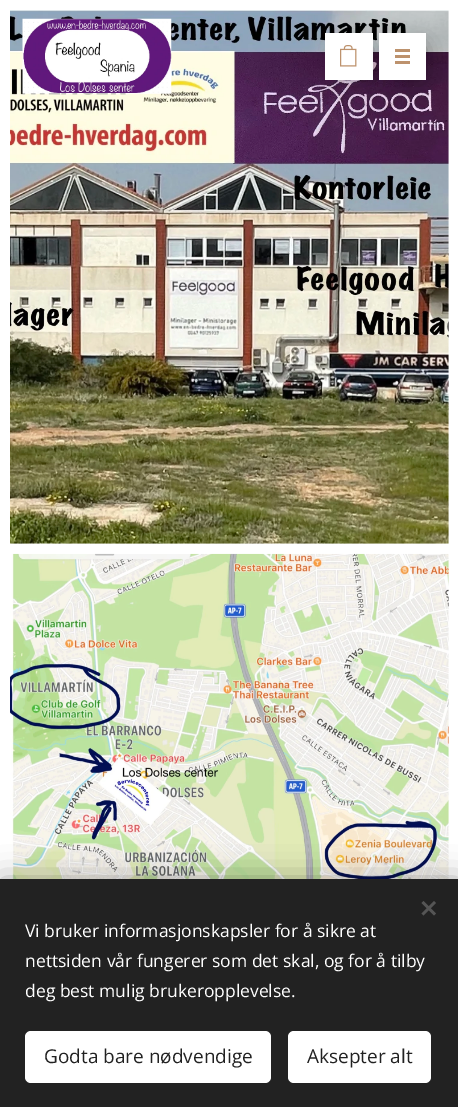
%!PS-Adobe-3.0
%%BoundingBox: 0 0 458 1107
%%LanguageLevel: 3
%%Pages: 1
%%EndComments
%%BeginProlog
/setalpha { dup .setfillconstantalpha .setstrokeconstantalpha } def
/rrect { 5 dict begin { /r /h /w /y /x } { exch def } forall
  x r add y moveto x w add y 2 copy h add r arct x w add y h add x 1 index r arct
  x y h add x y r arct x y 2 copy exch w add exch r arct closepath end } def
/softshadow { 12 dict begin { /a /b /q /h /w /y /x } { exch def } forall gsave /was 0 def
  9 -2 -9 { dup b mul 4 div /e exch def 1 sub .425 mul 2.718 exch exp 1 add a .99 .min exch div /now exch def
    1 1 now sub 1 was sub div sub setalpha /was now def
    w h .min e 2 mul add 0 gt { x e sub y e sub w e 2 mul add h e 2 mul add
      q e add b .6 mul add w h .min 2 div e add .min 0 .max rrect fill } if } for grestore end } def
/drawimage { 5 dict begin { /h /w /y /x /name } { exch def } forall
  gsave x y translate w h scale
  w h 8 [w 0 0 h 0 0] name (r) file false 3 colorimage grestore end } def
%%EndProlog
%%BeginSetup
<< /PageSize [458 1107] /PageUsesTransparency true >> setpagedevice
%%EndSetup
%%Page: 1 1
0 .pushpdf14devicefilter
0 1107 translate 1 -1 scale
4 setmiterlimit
1 setgray
0 0 458 1107 rectfill
(images/1.raw) 10 10 439 534 drawimage
(images/2.raw) 10 553 439 326 drawimage
(images/3.raw) 22 18 150 76 drawimage
0 setgray
340 48 28 27 0 10 0.5 softshadow
1 setgray
325 33 48 47 rectfill
(images/4.raw) 340 45 17 22 drawimage
0 setgray
394 48 27 27 0 10 0.5 softshadow
1 setgray
379 33 47 47 rectfill
0.741 0.573 0.427 setrgbcolor
395 55 15 3 rectfill
395 49 15 3 rectfill
395 61 15 3 rectfill
0 setgray
0 879 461 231 0 15.5 0.33 softshadow
0.133 setgray
0 879 458 228 rectfill
0.333 setgray
newpath 421.5 913.5 moveto 434 901 lineto 436 903 lineto 423.5 915.5 lineto closepath fill
newpath 423.5 901 moveto 436 913.5 lineto 434 915.5 lineto 421.5 903 lineto closepath fill
1 setgray
25 1031 246 52 6 rrect fill
288 1031 143 52 6 rrect fill
/OpenSans-Regular [17.5 0 0 -17.5 0 0] selectfont
25 937 moveto (Vi bruker informasjonskapsler for å sikre at) show
25 967 moveto (nettsiden vår fungerer som det skal, og for å tilby) show
25 997 moveto (deg best mulig brukeropplevelse.) show
/OpenSans-Regular [19 0 0 -19 0 0] selectfont
0.133 setgray
44 1063 moveto (Godta bare nødvendige) show
307 1063 moveto (Aksepter alt) show
.poppdf14devicefilter showpage
%%EOF
